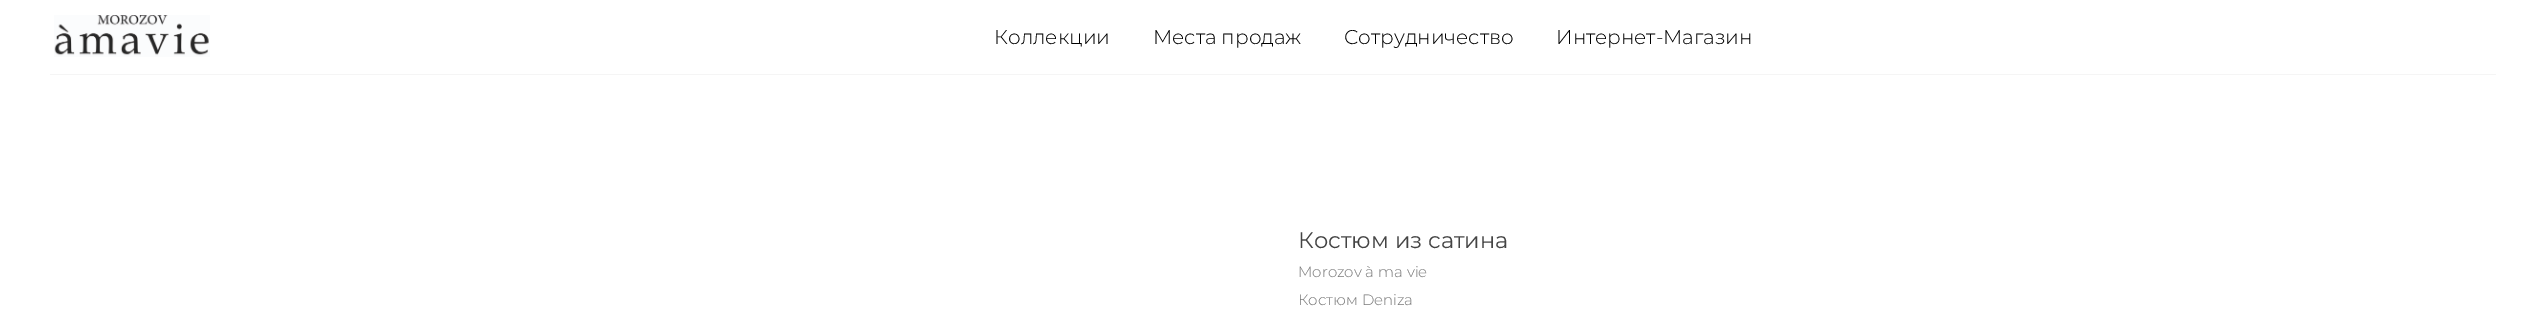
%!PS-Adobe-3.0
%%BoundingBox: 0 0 2546 325
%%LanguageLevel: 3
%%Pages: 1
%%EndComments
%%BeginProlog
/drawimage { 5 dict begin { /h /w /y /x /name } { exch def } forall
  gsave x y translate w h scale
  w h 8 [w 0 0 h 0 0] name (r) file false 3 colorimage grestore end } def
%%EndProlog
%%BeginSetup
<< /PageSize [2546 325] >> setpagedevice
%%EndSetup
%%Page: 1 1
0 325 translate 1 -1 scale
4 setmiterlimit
1 setgray
0 0 2546 325 rectfill
(images/1.raw) 54 15 156 42 drawimage
0.961 setgray
50 74 2446 1 rectfill
/Montserrat-Light [20 0 0 -20 0 0] selectfont
0 setgray
994 44 moveto (Коллекции) show
1153 44 moveto (Места продаж) show
1344 44 moveto (Сотрудничество) show
1556 44 moveto (Интернет-Магазин) show
/Montserrat-Regular [22.5 0 0 -22.5 0 0] selectfont
0.267 setgray
1298 248 moveto (Костюм из сатина) show
/Montserrat-Light [15 0 0 -15 0 0] selectfont
0.467 setgray
1298 277 moveto (Morozov à ma vie) show
1298 305 moveto (Костюм Deniza) show
showpage
%%EOF
